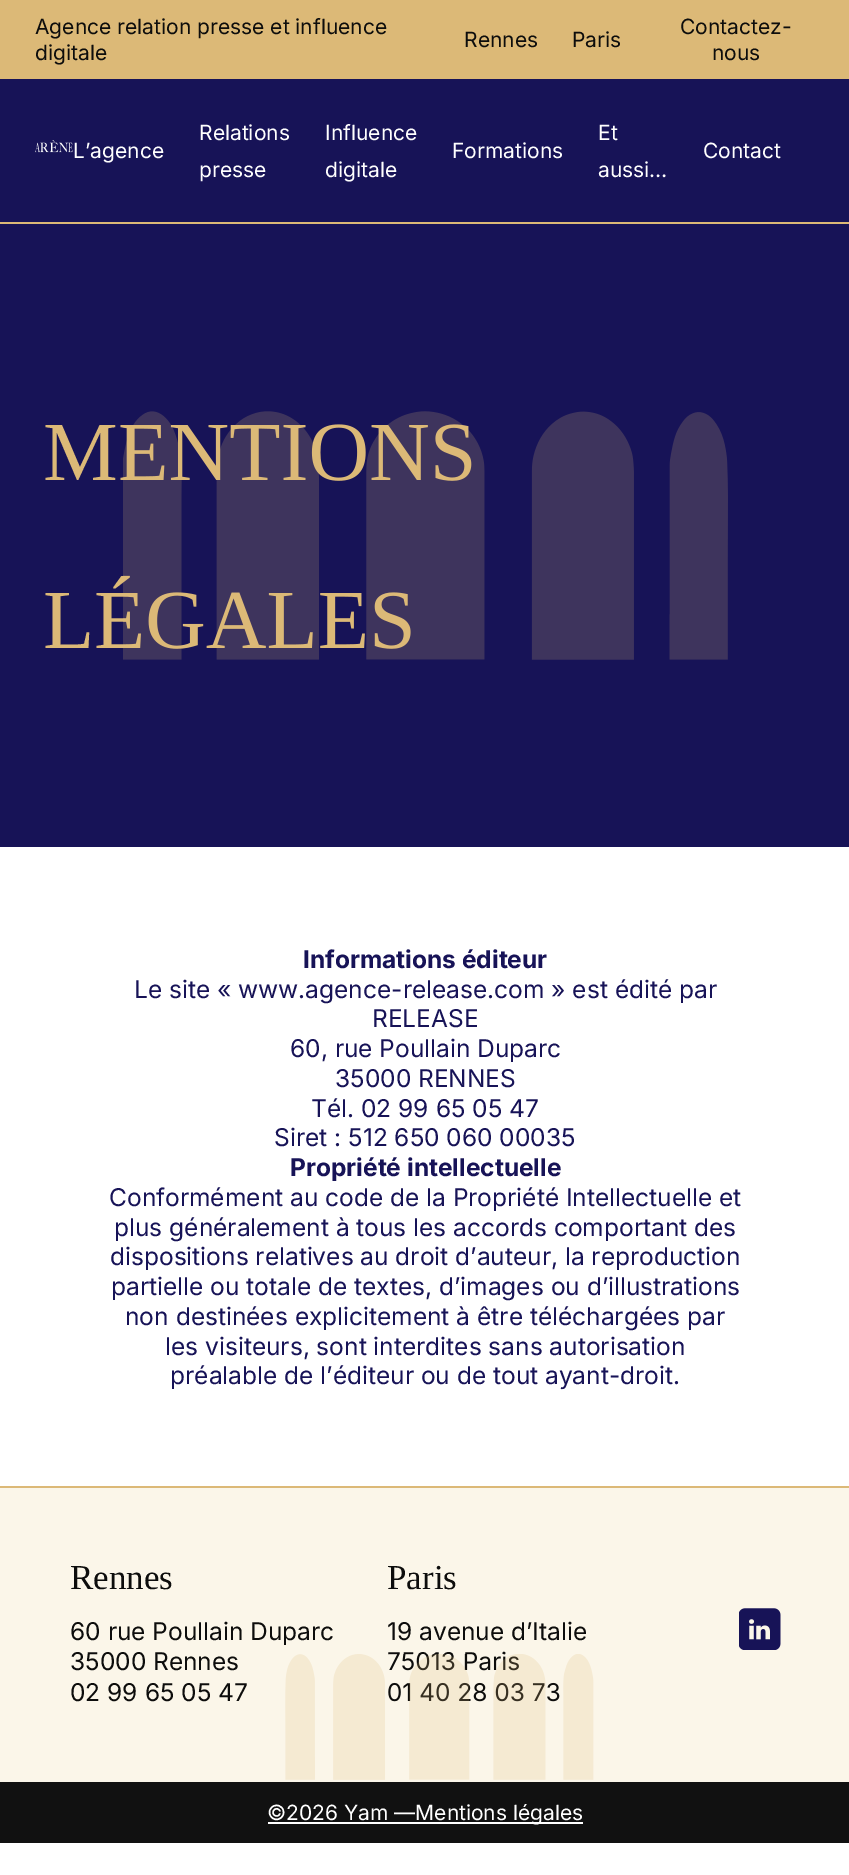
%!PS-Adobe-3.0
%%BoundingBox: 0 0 849 1875
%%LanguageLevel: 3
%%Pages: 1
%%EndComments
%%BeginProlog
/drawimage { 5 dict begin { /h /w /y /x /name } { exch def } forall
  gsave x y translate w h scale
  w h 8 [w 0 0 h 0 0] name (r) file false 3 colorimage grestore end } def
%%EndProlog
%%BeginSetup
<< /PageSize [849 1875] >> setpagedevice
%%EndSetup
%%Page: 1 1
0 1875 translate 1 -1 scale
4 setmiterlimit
1 setgray
0 0 849 1875 rectfill
0.863 0.725 0.467 setrgbcolor
0 0 849 79 rectfill
0.09 0.075 0.341 setrgbcolor
0 79 849 143 rectfill
0.863 0.725 0.467 setrgbcolor
0 222 849 2 rectfill
(images/1.raw) 35 140 38 13 drawimage
0.09 0.075 0.341 setrgbcolor
0 224 849 623 rectfill
0.984 0.965 0.914 setrgbcolor
0 1488 849 294 rectfill
0.863 0.725 0.467 setrgbcolor
0 1486 849 2 rectfill
(images/3.raw) 739 1608 42 42 drawimage
0.067 setgray
0 1782 849 61 rectfill
1 setgray
268 1822 315 2 rectfill
/Inter-Regular [21 0 0 -21 0 0] selectfont
0.051 0.051 0.047 setrgbcolor
35 34 moveto (Agence relation presse et influence) show
35 60 moveto (digitale) show
464 47 moveto (Rennes) show
572 47 moveto (Paris) show
680 34 moveto (Contactez-) show
712 60 moveto (nous) show
1 setgray
73 158 moveto (L’agence) show
199 140 moveto (Relations) show
199 177 moveto (presse) show
325 140 moveto (Influence) show
325 177 moveto (digitale) show
452 158 moveto (Formations) show
598 140 moveto (Et) show
598 177 moveto (aussi…) show
703 158 moveto (Contact) show
/LiberationSerif-Regular [84 0 0 -84 0 0] selectfont
0.863 0.725 0.467 setrgbcolor
43 480 moveto (MENTIONS) show
43 648 moveto (LÉGALES) show
(images/2.raw) 123 411 605 249 drawimage
/Inter-Bold [24.5 0 0 -24.5 0 0] selectfont
0.09 0.075 0.341 setrgbcolor
303 968 moveto (Informations éditeur) show
/Inter-Regular [24.5 0 0 -24.5 0 0] selectfont
134 998 moveto (Le site « www.agence-release.com » est édité par) show
372 1027 moveto (RELEASE) show
290 1057 moveto (60, rue Poullain Duparc) show
335 1087 moveto (35000 RENNES) show
311 1117 moveto (Tél. 02 99 65 05 47) show
274 1146 moveto (Siret : 512 650 060 00035) show
/Inter-Bold [24.5 0 0 -24.5 0 0] selectfont
290 1176 moveto (Propriété intellectuelle) show
/Inter-Regular [24.5 0 0 -24.5 0 0] selectfont
109 1206 moveto (Conformément au code de la Propriété Intellectuelle et) show
114 1236 moveto (plus généralement à tous les accords comportant des) show
110 1265 moveto (dispositions relatives au droit d’auteur, la reproduction) show
111 1295 moveto (partielle ou totale de textes, d’images ou d’illustrations) show
125 1325 moveto (non destinées explicitement à être téléchargées par) show
165 1355 moveto (les visiteurs, sont interdites sans autorisation) show
170 1384 moveto (préalable de l’éditeur ou de tout ayant-droit.) show
/LiberationSerif-Regular [35 0 0 -35 0 0] selectfont
0.051 0.051 0.047 setrgbcolor
70 1589 moveto (Rennes) show
/Inter-Regular [24.5 0 0 -24.5 0 0] selectfont
70 1640 moveto (60 rue Poullain Duparc) show
70 1670 moveto (35000 Rennes) show
70 1701 moveto (02 99 65 05 47) show
/LiberationSerif-Regular [35 0 0 -35 0 0] selectfont
387 1589 moveto (Paris) show
/Inter-Regular [24.5 0 0 -24.5 0 0] selectfont
387 1640 moveto (19 avenue d’Italie) show
387 1670 moveto (75013 Paris) show
387 1701 moveto (01 40 28 03 73) show
(images/4.raw) 285 1654 309 126 drawimage
/Inter-Regular [21 0 0 -21 0 0] selectfont
1 setgray
267 1820 moveto (©2026 Yam —Mentions légales) show
showpage
%%EOF
